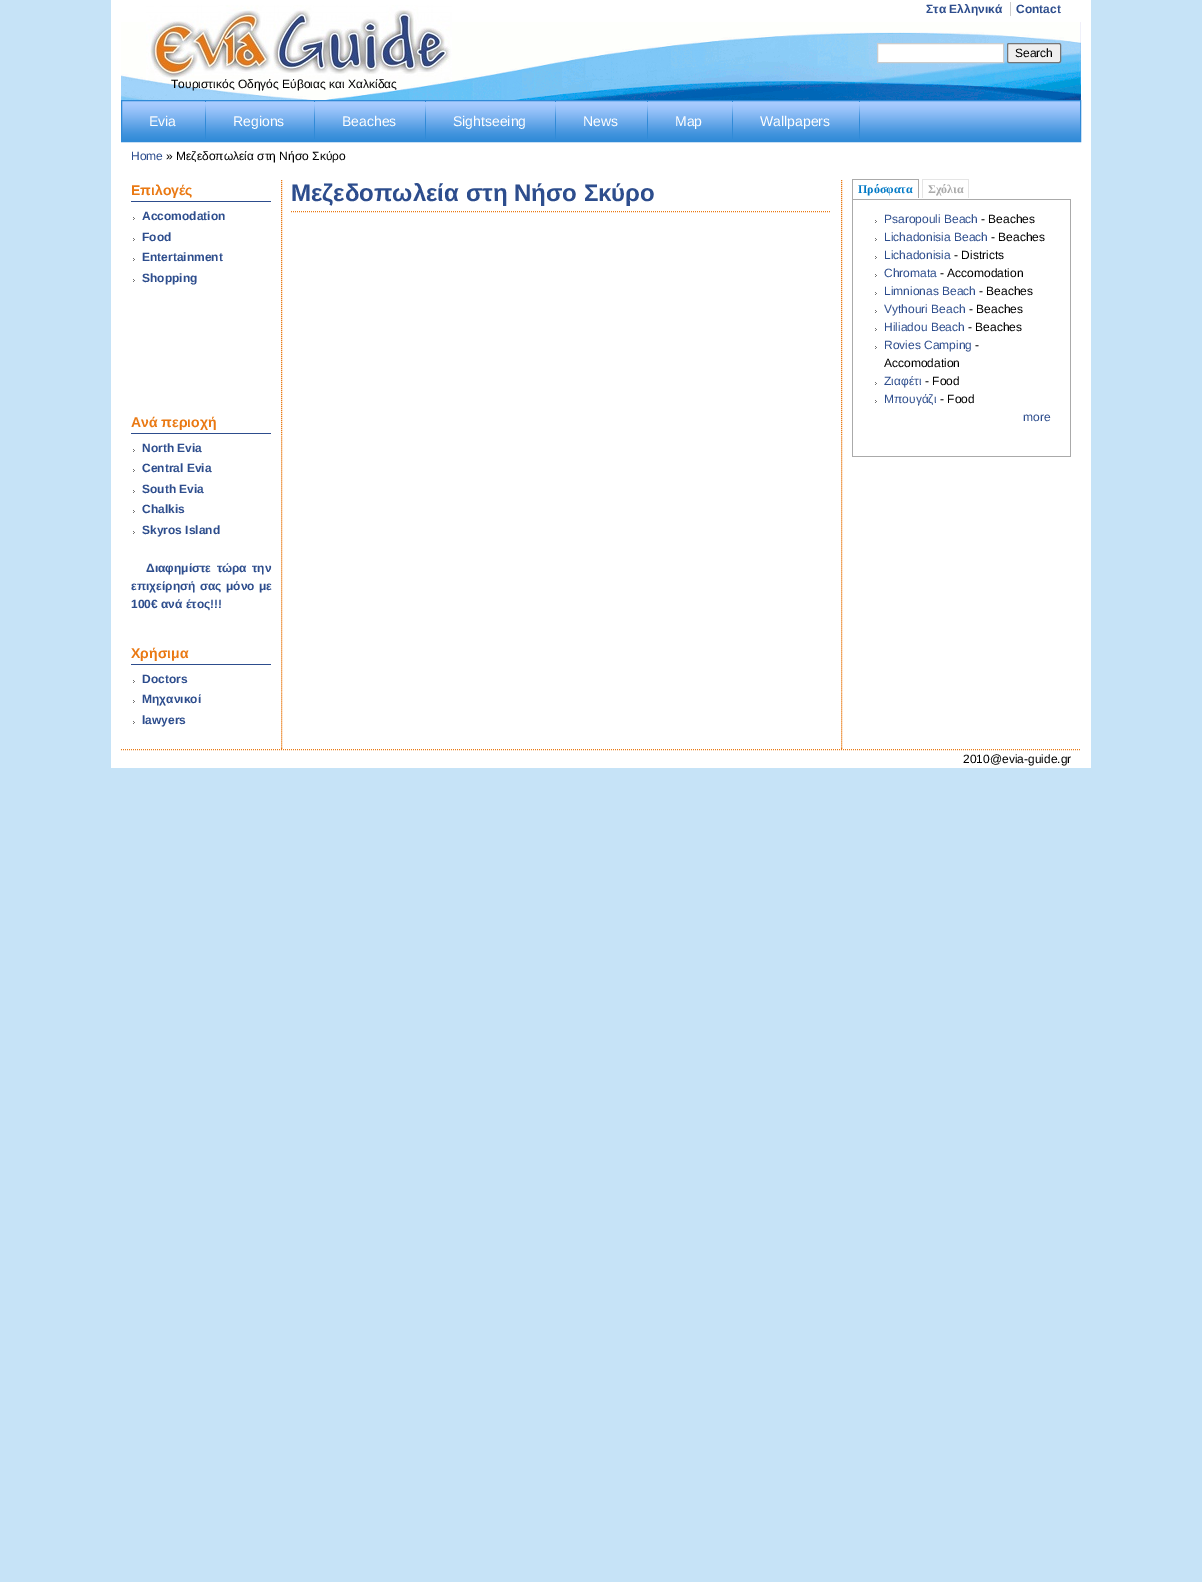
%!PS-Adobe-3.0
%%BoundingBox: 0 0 1202 1582
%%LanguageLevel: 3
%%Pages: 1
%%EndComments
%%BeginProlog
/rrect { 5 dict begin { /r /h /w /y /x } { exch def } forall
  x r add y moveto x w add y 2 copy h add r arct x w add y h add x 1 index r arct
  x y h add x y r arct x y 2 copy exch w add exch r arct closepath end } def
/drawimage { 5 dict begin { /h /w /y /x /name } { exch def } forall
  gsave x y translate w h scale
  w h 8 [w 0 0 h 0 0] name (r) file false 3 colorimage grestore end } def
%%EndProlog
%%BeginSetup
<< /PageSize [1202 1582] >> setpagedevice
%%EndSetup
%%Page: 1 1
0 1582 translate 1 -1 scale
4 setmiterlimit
0.776 0.89 0.969 setrgbcolor
0 0 1202 1582 rectfill
1 setgray
111 0 980 768 rectfill
(images/1.raw) 121 22 960 78 drawimage
0.8 setgray
1010 2 1 14 rectfill
1 setgray
newpath 877.5 43.5 moveto 1003.5 43.5 lineto 1003.5 62.5 lineto 877.5 62.5 lineto closepath gsave fill grestore
0.8 setgray
stroke
0.937 setgray
1007.5 43.5 53 19 1.5 rrect gsave fill grestore
0.463 setgray
stroke
(images/2.raw) 146 5 306 75 drawimage
(images/3.raw) 122 101 958 40 drawimage
0.188 0.541 0.843 setrgbcolor
121.5 100.5 959 41 rectstroke
(images/4.raw) 205 101 1 38 drawimage
(images/4.raw) 314 101 1 38 drawimage
(images/4.raw) 425 101 1 38 drawimage
(images/4.raw) 555 101 1 38 drawimage
(images/4.raw) 647 101 1 38 drawimage
(images/4.raw) 732 101 1 38 drawimage
(images/4.raw) 859 101 1 38 drawimage
0.918 0.475 0.075 setrgbcolor
[1 1] 0 setdash
newpath 281.5 180 moveto 281.5 749 lineto stroke
0.176 0.302 0.553 setrgbcolor
131 201 140 1 rectfill
(images/5.raw) 133 217 2 3 drawimage
(images/5.raw) 133 238 2 3 drawimage
(images/5.raw) 133 258 2 3 drawimage
(images/5.raw) 133 279 2 3 drawimage
131 433 140 1 rectfill
(images/5.raw) 133 449 2 3 drawimage
(images/5.raw) 133 469 2 3 drawimage
(images/5.raw) 133 490 2 3 drawimage
(images/5.raw) 133 510 2 3 drawimage
(images/5.raw) 133 531 2 3 drawimage
131 664 140 1 rectfill
(images/5.raw) 133 680 2 3 drawimage
(images/5.raw) 133 700 2 3 drawimage
(images/5.raw) 133 721 2 3 drawimage
0.918 0.475 0.075 setrgbcolor
newpath 291 211.5 moveto 831 211.5 lineto stroke
newpath 841.5 180 moveto 841.5 749 lineto stroke
0.667 setgray
852 199 219 1 rectfill
852 179 67 1 rectfill
918 179 1 20 rectfill
1 setgray
918 198 1 1 rectfill
0.667 setgray
852 179 1 20 rectfill
0.898 setgray
922 179 47 1 rectfill
968 179 1 19 rectfill
922 179 1 19 rectfill
0.667 setgray
1070 200 1 257 rectfill
852 456 219 1 rectfill
852 200 1 257 rectfill
(images/5.raw) 875 220 2 3 drawimage
(images/5.raw) 875 238 2 3 drawimage
(images/5.raw) 875 256 2 3 drawimage
(images/5.raw) 875 274 2 3 drawimage
(images/5.raw) 875 292 2 3 drawimage
(images/5.raw) 875 310 2 3 drawimage
(images/5.raw) 875 328 2 3 drawimage
(images/5.raw) 875 346 2 3 drawimage
(images/5.raw) 875 382 2 3 drawimage
(images/5.raw) 875 400 2 3 drawimage
0.918 0.475 0.075 setrgbcolor
newpath 121 749.5 moveto 1081 749.5 lineto stroke
/LiberationSans-Bold [12 0 0 -12 0 0] selectfont
0.176 0.302 0.553 setrgbcolor
926 13 moveto (Στα Ελληνικά) show
1016 13 moveto (Contact) show
/LiberationSans-Regular [12 0 0 -12 0 0] selectfont
0 setgray
1015 57 moveto (Search) show
171 88 moveto (Τουριστικός Οδηγός Εύβοιας και Χαλκίδας) show
/LiberationSans-Regular [14 0 0 -14 0 0] selectfont
1 setgray
149 126 moveto (Evia) show
233 126 moveto (Regions) show
342 126 moveto (Beaches) show
453 126 moveto (Sightseeing) show
583 126 moveto (News) show
675 126 moveto (Map) show
760 126 moveto (Wallpapers) show
/LiberationSans-Regular [12 0 0 -12 0 0] selectfont
0.176 0.302 0.553 setrgbcolor
131 160 moveto (Home) show
0 setgray
166 160 moveto (» Μεζεδοπωλεία στη Νήσο Σκύρο) show
/LiberationSans-Bold [14 0 0 -14 0 0] selectfont
0.918 0.475 0.075 setrgbcolor
131 195 moveto (Επιλογές) show
/LiberationSans-Bold [12 0 0 -12 0 0] selectfont
0.176 0.302 0.553 setrgbcolor
142 220 moveto (Accomodation) show
142 241 moveto (Food) show
142 261 moveto (Entertainment) show
142 282 moveto (Shopping) show
/LiberationSans-Bold [14 0 0 -14 0 0] selectfont
0.918 0.475 0.075 setrgbcolor
131 427 moveto (Ανά περιοχή) show
/LiberationSans-Bold [12 0 0 -12 0 0] selectfont
0.176 0.302 0.553 setrgbcolor
142 452 moveto (North Evia) show
142 472 moveto (Central Evia) show
142 493 moveto (South Evia) show
142 513 moveto (Chalkis) show
142 534 moveto (Skyros Island) show
146 572 moveto 2 0 32 (Διαφημίστε τώρα την) widthshow
131 590 moveto 1 0 32 (επιχείρησή σας μόνο με) widthshow
131 608 moveto (100€ ανά έτος!!!) show
/LiberationSans-Bold [14 0 0 -14 0 0] selectfont
0.918 0.475 0.075 setrgbcolor
131 658 moveto (Χρήσιμα) show
/LiberationSans-Bold [12 0 0 -12 0 0] selectfont
0.176 0.302 0.553 setrgbcolor
142 683 moveto (Doctors) show
142 703 moveto (Μηχανικοί) show
142 724 moveto (lawyers) show
/LiberationSans-Bold [24 0 0 -24 0 0] selectfont
291 201 moveto (Μεζεδοπωλεία στη Νήσο Σκύρο) show
/LiberationSerif-Bold [12 0 0 -12 0 0] selectfont
0.008 0.478 0.776 setrgbcolor
858 193 moveto (Πρόσφατα) show
0.667 setgray
928 193 moveto (Σχόλια) show
/LiberationSans-Regular [12 0 0 -12 0 0] selectfont
0.176 0.302 0.553 setrgbcolor
884 223 moveto (Psaropouli Beach) show
0 setgray
981 223 moveto (- Beaches) show
0.176 0.302 0.553 setrgbcolor
884 241 moveto (Lichadonisia Beach) show
0 setgray
991 241 moveto (- Beaches) show
0.176 0.302 0.553 setrgbcolor
884 259 moveto (Lichadonisia) show
0 setgray
954 259 moveto (- Districts) show
0.176 0.302 0.553 setrgbcolor
884 277 moveto (Chromata) show
0 setgray
940 277 moveto (- Accomodation) show
0.176 0.302 0.553 setrgbcolor
884 295 moveto (Limnionas Beach) show
0 setgray
979 295 moveto (- Beaches) show
0.176 0.302 0.553 setrgbcolor
884 313 moveto (Vythouri Beach) show
0 setgray
969 313 moveto (- Beaches) show
0.176 0.302 0.553 setrgbcolor
884 331 moveto (Hiliadou Beach) show
0 setgray
968 331 moveto (- Beaches) show
0.176 0.302 0.553 setrgbcolor
884 349 moveto (Rovies Camping) show
0 setgray
975 349 moveto (-) show
884 367 moveto (Accomodation) show
0.176 0.302 0.553 setrgbcolor
884 385 moveto (Ζιαφέτι) show
0 setgray
925 385 moveto (- Food) show
0.176 0.302 0.553 setrgbcolor
884 403 moveto (Μπουγάζι) show
0 setgray
940 403 moveto (- Food) show
0.176 0.302 0.553 setrgbcolor
1023 421 moveto (more) show
0 setgray
963 763 moveto (2010@evia-guide.gr) show
showpage
%%EOF
